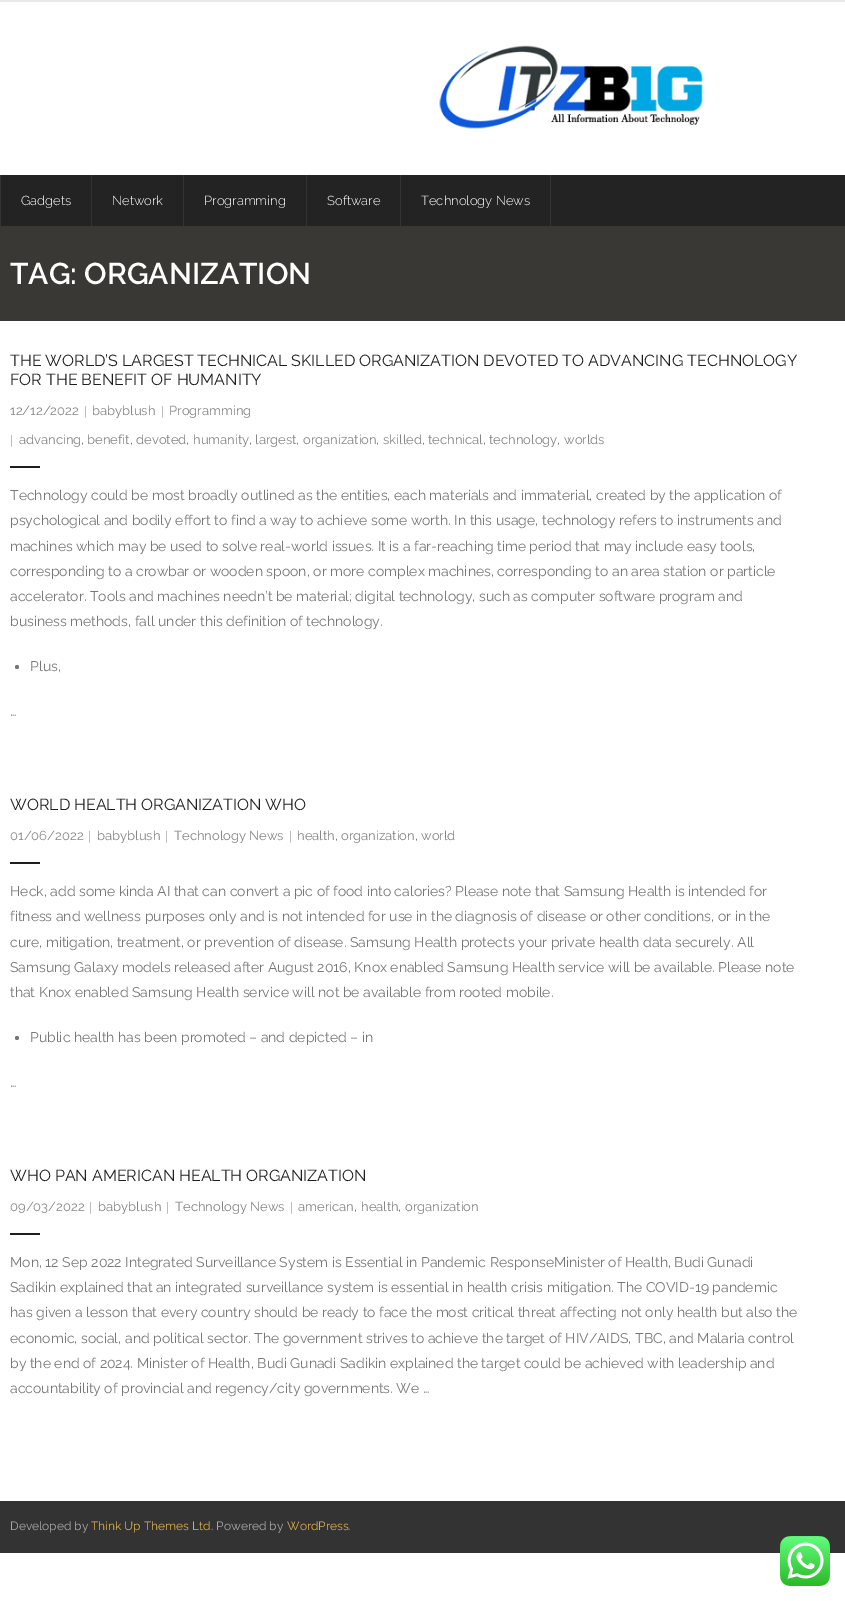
%!PS-Adobe-3.0
%%BoundingBox: 0 0 845 1601
%%LanguageLevel: 3
%%Pages: 1
%%EndComments
%%BeginProlog
/drawimage { 5 dict begin { /h /w /y /x /name } { exch def } forall
  gsave x y translate w h scale
  w h 8 [w 0 0 h 0 0] name (r) file false 3 colorimage grestore end } def
%%EndProlog
%%BeginSetup
<< /PageSize [845 1601] >> setpagedevice
%%EndSetup
%%Page: 1 1
0 1601 translate 1 -1 scale
4 setmiterlimit
1 setgray
0 0 845 1601 rectfill
0.914 setgray
0 0 845 2 rectfill
(images/1.raw) 439 45 264 84 drawimage
0.137 setgray
1 175 844 51 rectfill
0.2 setgray
0 175 1 51 rectfill
91 175 1 51 rectfill
183 175 1 51 rectfill
306 175 1 51 rectfill
550 175 1 51 rectfill
400 175 1 51 rectfill
0.227 0.22 0.208 setrgbcolor
0 226 845 95 rectfill
0.118 setgray
10 466 30 2 rectfill
0.467 setgray
newpath 17 667 2 0 360 arc closepath fill
0.118 setgray
10 862 30 2 rectfill
0.467 setgray
newpath 17 1038 2 0 360 arc closepath fill
0.118 setgray
10 1233 30 2 rectfill
0.2 setgray
0 1501 845 52 rectfill
(images/2.raw) 780 1536 50 50 drawimage
/Raleway-Light [13 0 0 -13 0 0] selectfont
1 setgray
21 205 moveto (Gadgets) show
112 205 moveto (Network) show
204 205 moveto (Programming) show
327 205 moveto (Software) show
421 205 moveto (Technology News) show
/Raleway-SemiBold [30 0 0 -30 0 0] selectfont
10 284 moveto (TAG: ORGANIZATION) show
/Raleway-Regular [16 0 0 -16 0 0] selectfont
0.118 setgray
10 366 moveto (THE WORLD’S LARGEST TECHNICAL SKILLED ORGANIZATION DEVOTED TO ADVANCING TECHNOLOGY) show
10 385 moveto (FOR THE BENEFIT OF HUMANITY) show
/Raleway-Regular [13 0 0 -13 0 0] selectfont
0.522 setgray
10 415 moveto (12/12/2022) show
/LiberationSerif-Regular [13 0 0 -13 0 0] selectfont
84 415 moveto (|) show
/Raleway-Regular [13 0 0 -13 0 0] selectfont
92 415 moveto (babyblush) show
/LiberationSerif-Regular [13 0 0 -13 0 0] selectfont
161 415 moveto (|) show
/Raleway-Regular [13 0 0 -13 0 0] selectfont
169 415 moveto (Programming) show
/LiberationSerif-Regular [13 0 0 -13 0 0] selectfont
10 444 moveto (|) show
/Raleway-Regular [13 0 0 -13 0 0] selectfont
19 444 moveto (advancing) show
0.467 setgray
81 444 moveto (,) show
0.522 setgray
87 444 moveto (benefit) show
0.467 setgray
130 444 moveto (,) show
0.522 setgray
136 444 moveto (devoted) show
0.467 setgray
186 444 moveto (,) show
0.522 setgray
193 444 moveto (humanity) show
0.467 setgray
249 444 moveto (,) show
0.522 setgray
255 444 moveto (largest) show
0.467 setgray
296 444 moveto (,) show
0.522 setgray
303 444 moveto (organization) show
0.467 setgray
376 444 moveto (,) show
0.522 setgray
383 444 moveto (skilled) show
0.467 setgray
422 444 moveto (,) show
0.522 setgray
428 444 moveto (technical) show
0.467 setgray
483 444 moveto (,) show
0.522 setgray
489 444 moveto (technology) show
0.467 setgray
557 444 moveto (,) show
0.522 setgray
564 444 moveto (worlds) show
/Raleway-Regular [14 0 0 -14 0 0] selectfont
0.467 setgray
10 500 moveto (Technology could be most broadly outlined as the entities, each materials and immaterial, created by the application of) show
10 525 moveto (psychological and bodily effort to find a way to achieve some worth. In this usage, technology refers to instruments and) show
10 551 moveto (machines which may be used to solve real-world issues. It is a far-reaching time period that may include easy tools,) show
10 576 moveto (corresponding to a crowbar or wooden spoon, or more complex machines, corresponding to an area station or particle) show
10 601 moveto (accelerator. Tools and machines needn’t be material; digital technology, such as computer software program and) show
10 626 moveto (business methods, fall under this definition of technology.) show
30 671 moveto (Plus,) show
10 716 moveto (…) show
/Raleway-Regular [16 0 0 -16 0 0] selectfont
0.118 setgray
10 810 moveto (WORLD HEALTH ORGANIZATION WHO) show
/Raleway-Regular [13 0 0 -13 0 0] selectfont
0.522 setgray
10 840 moveto (01/06/2022) show
/LiberationSerif-Regular [13 0 0 -13 0 0] selectfont
88 840 moveto (|) show
/Raleway-Regular [13 0 0 -13 0 0] selectfont
97 840 moveto (babyblush) show
/LiberationSerif-Regular [13 0 0 -13 0 0] selectfont
165 840 moveto (|) show
/Raleway-Regular [13 0 0 -13 0 0] selectfont
174 840 moveto (Technology News) show
/LiberationSerif-Regular [13 0 0 -13 0 0] selectfont
289 840 moveto (|) show
/Raleway-Regular [13 0 0 -13 0 0] selectfont
297 840 moveto (health) show
0.467 setgray
335 840 moveto (,) show
0.522 setgray
341 840 moveto (organization) show
0.467 setgray
415 840 moveto (,) show
0.522 setgray
421 840 moveto (world) show
/Raleway-Regular [14 0 0 -14 0 0] selectfont
0.467 setgray
10 896 moveto (Heck, add some kinda AI that can convert a pic of food into calories? Please note that Samsung Health is intended for) show
10 921 moveto (fitness and wellness purposes only and is not intended for use in the diagnosis of disease or other conditions, or in the) show
10 947 moveto (cure, mitigation, treatment, or prevention of disease. Samsung Health protects your private health data securely. All) show
10 972 moveto (Samsung Galaxy models released after August 2016, Knox enabled Samsung Health service will be available. Please note) show
10 997 moveto (that Knox enabled Samsung Health service will not be available from rooted mobile.) show
30 1042 moveto (Public health has been promoted – and depicted – in) show
10 1087 moveto (…) show
/Raleway-Regular [16 0 0 -16 0 0] selectfont
0.118 setgray
10 1181 moveto (WHO PAN AMERICAN HEALTH ORGANIZATION) show
/Raleway-Regular [13 0 0 -13 0 0] selectfont
0.522 setgray
10 1211 moveto (09/03/2022) show
/LiberationSerif-Regular [13 0 0 -13 0 0] selectfont
89 1211 moveto (|) show
/Raleway-Regular [13 0 0 -13 0 0] selectfont
98 1211 moveto (babyblush) show
/LiberationSerif-Regular [13 0 0 -13 0 0] selectfont
166 1211 moveto (|) show
/Raleway-Regular [13 0 0 -13 0 0] selectfont
175 1211 moveto (Technology News) show
/LiberationSerif-Regular [13 0 0 -13 0 0] selectfont
290 1211 moveto (|) show
/Raleway-Regular [13 0 0 -13 0 0] selectfont
298 1211 moveto (american) show
0.467 setgray
354 1211 moveto (,) show
0.522 setgray
361 1211 moveto (health) show
0.467 setgray
398 1211 moveto (,) show
0.522 setgray
405 1211 moveto (organization) show
/Raleway-Regular [14 0 0 -14 0 0] selectfont
0.467 setgray
10 1267 moveto (Mon, 12 Sep 2022 Integrated Surveillance System is Essential in Pandemic ResponseMinister of Health, Budi Gunadi) show
10 1292 moveto (Sadikin explained that an integrated surveillance system is essential in health crisis mitigation. The COVID-19 pandemic) show
10 1317 moveto (has given a lesson that every country should be ready to face the most critical threat affecting not only health but also the) show
10 1343 moveto (economic, social, and political sector. The government strives to achieve the target of HIV/AIDS, TBC, and Malaria control) show
10 1368 moveto (by the end of 2024. Minister of Health, Budi Gunadi Sadikin explained the target could be achieved with leadership and) show
10 1393 moveto (accountability of provincial and regency/city governments. We …) show
/Raleway-Regular [12 0 0 -12 0 0] selectfont
0.667 setgray
10 1530 moveto (Developed by) show
0.867 0.686 0.302 setrgbcolor
91 1530 moveto (Think Up Themes Ltd) show
0.667 setgray
211 1530 moveto (. Powered by) show
0.867 0.686 0.302 setrgbcolor
287 1530 moveto (WordPress) show
0.667 setgray
348 1530 moveto (.) show
showpage
%%EOF
